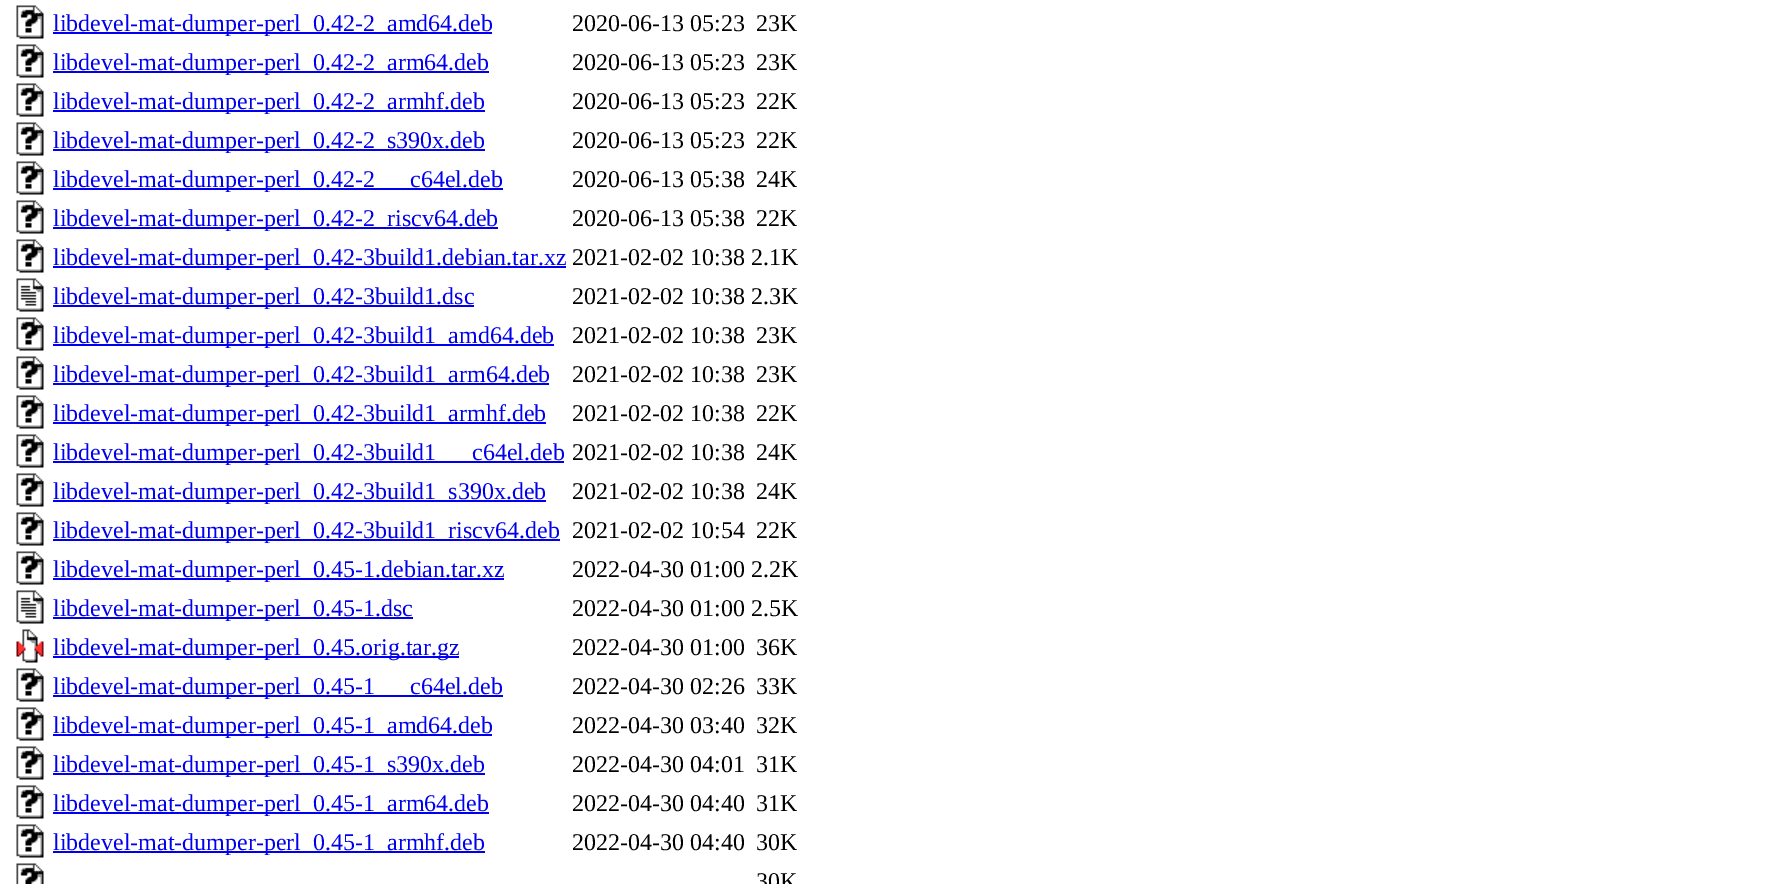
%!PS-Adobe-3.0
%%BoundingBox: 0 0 1787 884
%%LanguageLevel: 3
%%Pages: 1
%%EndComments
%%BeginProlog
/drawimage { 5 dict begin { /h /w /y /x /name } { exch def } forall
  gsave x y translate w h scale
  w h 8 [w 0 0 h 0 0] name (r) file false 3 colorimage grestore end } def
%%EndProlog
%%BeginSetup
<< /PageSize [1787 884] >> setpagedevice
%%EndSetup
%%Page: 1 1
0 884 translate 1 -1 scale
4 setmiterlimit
1 setgray
0 0 1787 884 rectfill
(images/1.raw) 16 5 28 34 drawimage
0 0 0.933 setrgbcolor
53 32 439 2 rectfill
(images/1.raw) 16 44 28 34 drawimage
53 71 436 2 rectfill
(images/1.raw) 16 83 28 34 drawimage
53 110 432 2 rectfill
(images/1.raw) 16 122 28 34 drawimage
53 149 432 2 rectfill
(images/1.raw) 16 161 28 34 drawimage
53 188 450 2 rectfill
(images/1.raw) 16 200 28 34 drawimage
53 227 445 2 rectfill
(images/1.raw) 16 239 28 34 drawimage
53 266 513 2 rectfill
(images/2.raw) 16 278 28 34 drawimage
53 305 421 2 rectfill
(images/1.raw) 16 317 28 34 drawimage
53 344 501 2 rectfill
(images/1.raw) 16 356 28 34 drawimage
53 383 496 2 rectfill
(images/1.raw) 16 395 28 34 drawimage
53 422 493 2 rectfill
(images/1.raw) 16 434 28 34 drawimage
53 461 511 2 rectfill
(images/1.raw) 16 473 28 34 drawimage
53 500 493 2 rectfill
(images/1.raw) 16 512 28 34 drawimage
53 539 507 2 rectfill
(images/1.raw) 16 551 28 34 drawimage
53 578 451 2 rectfill
(images/2.raw) 16 590 28 34 drawimage
53 617 360 2 rectfill
(images/3.raw) 16 629 28 34 drawimage
53 656 406 2 rectfill
(images/1.raw) 16 668 28 34 drawimage
53 695 450 2 rectfill
(images/1.raw) 16 707 28 34 drawimage
53 734 439 2 rectfill
(images/1.raw) 16 746 28 34 drawimage
53 773 432 2 rectfill
(images/1.raw) 16 785 28 34 drawimage
53 812 436 2 rectfill
(images/1.raw) 16 824 28 34 drawimage
53 851 432 2 rectfill
(images/4.raw) 16 863 28 21 drawimage
/LiberationSerif-Regular [24 0 0 -24 0 0] selectfont
53 31 moveto (libdevel-mat-dumper-perl_0.42-2_amd64.deb) show
0 setgray
572 31 moveto (2020-06-13 05:23) show
756 31 moveto (23K) show
0 0 0.933 setrgbcolor
53 70 moveto (libdevel-mat-dumper-perl_0.42-2_arm64.deb) show
0 setgray
572 70 moveto (2020-06-13 05:23) show
756 70 moveto (23K) show
0 0 0.933 setrgbcolor
53 109 moveto (libdevel-mat-dumper-perl_0.42-2_armhf.deb) show
0 setgray
572 109 moveto (2020-06-13 05:23) show
756 109 moveto (22K) show
0 0 0.933 setrgbcolor
53 148 moveto (libdevel-mat-dumper-perl_0.42-2_s390x.deb) show
0 setgray
572 148 moveto (2020-06-13 05:23) show
756 148 moveto (22K) show
0 0 0.933 setrgbcolor
53 187 moveto (libdevel-mat-dumper-perl_0.42-2) show
410 187 moveto (c64el.deb) show
0 setgray
572 187 moveto (2020-06-13 05:38) show
756 187 moveto (24K) show
0 0 0.933 setrgbcolor
53 226 moveto (libdevel-mat-dumper-perl_0.42-2_riscv64.deb) show
0 setgray
572 226 moveto (2020-06-13 05:38) show
756 226 moveto (22K) show
0 0 0.933 setrgbcolor
53 265 moveto (libdevel-mat-dumper-perl_0.42-3build1.debian.tar.xz) show
0 setgray
572 265 moveto (2021-02-02 10:38 2.1K) show
0 0 0.933 setrgbcolor
53 304 moveto (libdevel-mat-dumper-perl_0.42-3build1.dsc) show
0 setgray
572 304 moveto (2021-02-02 10:38 2.3K) show
0 0 0.933 setrgbcolor
53 343 moveto (libdevel-mat-dumper-perl_0.42-3build1_amd64.deb) show
0 setgray
572 343 moveto (2021-02-02 10:38) show
756 343 moveto (23K) show
0 0 0.933 setrgbcolor
53 382 moveto (libdevel-mat-dumper-perl_0.42-3build1_arm64.deb) show
0 setgray
572 382 moveto (2021-02-02 10:38) show
756 382 moveto (23K) show
0 0 0.933 setrgbcolor
53 421 moveto (libdevel-mat-dumper-perl_0.42-3build1_armhf.deb) show
0 setgray
572 421 moveto (2021-02-02 10:38) show
756 421 moveto (22K) show
0 0 0.933 setrgbcolor
53 460 moveto (libdevel-mat-dumper-perl_0.42-3build1) show
472 460 moveto (c64el.deb) show
0 setgray
572 460 moveto (2021-02-02 10:38) show
756 460 moveto (24K) show
0 0 0.933 setrgbcolor
53 499 moveto (libdevel-mat-dumper-perl_0.42-3build1_s390x.deb) show
0 setgray
572 499 moveto (2021-02-02 10:38) show
756 499 moveto (24K) show
0 0 0.933 setrgbcolor
53 538 moveto (libdevel-mat-dumper-perl_0.42-3build1_riscv64.deb) show
0 setgray
572 538 moveto (2021-02-02 10:54) show
756 538 moveto (22K) show
0 0 0.933 setrgbcolor
53 577 moveto (libdevel-mat-dumper-perl_0.45-1.debian.tar.xz) show
0 setgray
572 577 moveto (2022-04-30 01:00 2.2K) show
0 0 0.933 setrgbcolor
53 616 moveto (libdevel-mat-dumper-perl_0.45-1.dsc) show
0 setgray
572 616 moveto (2022-04-30 01:00 2.5K) show
0 0 0.933 setrgbcolor
53 655 moveto (libdevel-mat-dumper-perl_0.45.orig.tar.gz) show
0 setgray
572 655 moveto (2022-04-30 01:00) show
756 655 moveto (36K) show
0 0 0.933 setrgbcolor
53 694 moveto (libdevel-mat-dumper-perl_0.45-1) show
410 694 moveto (c64el.deb) show
0 setgray
572 694 moveto (2022-04-30 02:26) show
756 694 moveto (33K) show
0 0 0.933 setrgbcolor
53 733 moveto (libdevel-mat-dumper-perl_0.45-1_amd64.deb) show
0 setgray
572 733 moveto (2022-04-30 03:40) show
756 733 moveto (32K) show
0 0 0.933 setrgbcolor
53 772 moveto (libdevel-mat-dumper-perl_0.45-1_s390x.deb) show
0 setgray
572 772 moveto (2022-04-30 04:01) show
756 772 moveto (31K) show
0 0 0.933 setrgbcolor
53 811 moveto (libdevel-mat-dumper-perl_0.45-1_arm64.deb) show
0 setgray
572 811 moveto (2022-04-30 04:40) show
756 811 moveto (31K) show
0 0 0.933 setrgbcolor
53 850 moveto (libdevel-mat-dumper-perl_0.45-1_armhf.deb) show
0 setgray
572 850 moveto (2022-04-30 04:40) show
756 850 moveto (30K) show
756 889 moveto (30K) show
showpage
%%EOF
